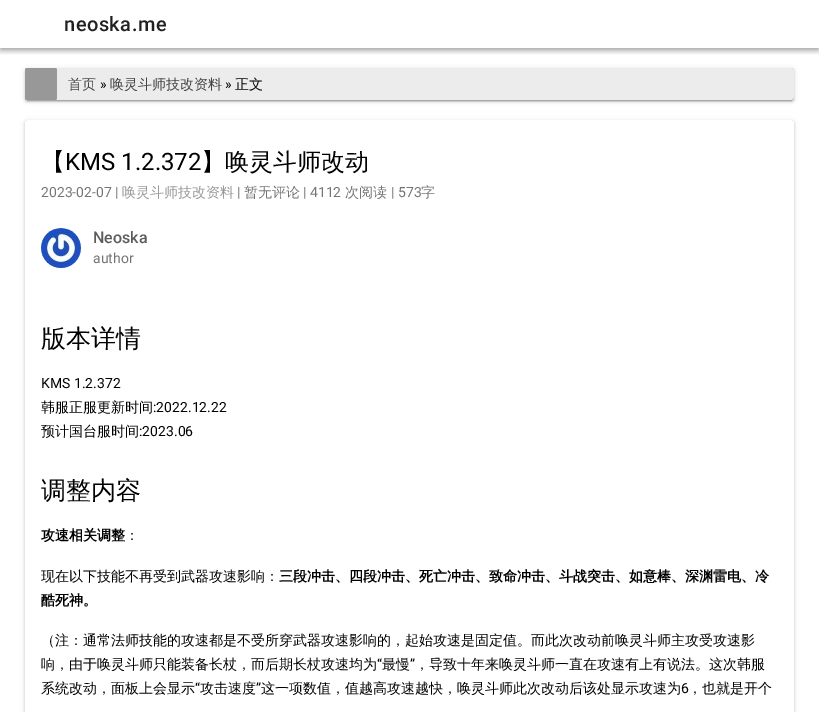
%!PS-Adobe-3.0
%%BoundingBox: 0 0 819 712
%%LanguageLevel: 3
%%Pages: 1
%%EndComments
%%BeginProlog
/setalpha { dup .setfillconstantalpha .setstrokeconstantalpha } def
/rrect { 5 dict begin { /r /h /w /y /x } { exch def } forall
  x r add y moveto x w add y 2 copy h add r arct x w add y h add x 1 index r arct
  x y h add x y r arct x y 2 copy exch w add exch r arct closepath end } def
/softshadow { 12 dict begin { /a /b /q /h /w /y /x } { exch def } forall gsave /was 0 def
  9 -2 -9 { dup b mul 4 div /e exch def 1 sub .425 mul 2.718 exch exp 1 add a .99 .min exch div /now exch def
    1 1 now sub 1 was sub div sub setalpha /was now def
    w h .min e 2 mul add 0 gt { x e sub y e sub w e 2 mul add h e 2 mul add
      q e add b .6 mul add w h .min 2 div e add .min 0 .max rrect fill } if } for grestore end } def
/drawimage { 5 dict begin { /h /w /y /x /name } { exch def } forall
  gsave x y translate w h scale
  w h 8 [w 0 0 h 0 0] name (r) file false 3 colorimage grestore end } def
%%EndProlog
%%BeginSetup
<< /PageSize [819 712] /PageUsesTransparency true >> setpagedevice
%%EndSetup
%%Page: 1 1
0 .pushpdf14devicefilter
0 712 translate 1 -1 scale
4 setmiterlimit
1 setgray
0 0 819 712 rectfill
gsave
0 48 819 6 rectclip
0 setgray
0 1 819 48 0 5 0.12 softshadow
grestore
gsave
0 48 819 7 rectclip
0 setgray
0 4 819 48 0 2.5 0.14 softshadow
grestore
gsave
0 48 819 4 rectclip
0 setgray
1 3 817 46 0 2 0.2 softshadow
grestore
gsave
newpath 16 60 moveto 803 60 lineto 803 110 lineto 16 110 lineto closepath 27 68 moveto 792 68 lineto 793 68 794 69 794 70 curveto 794 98 lineto 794 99 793 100 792 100 curveto 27 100 lineto 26 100 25 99 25 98 curveto 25 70 lineto 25 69 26 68 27 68 curveto closepath eoclip newpath
0 setgray
25 69 769 32 2 2.5 0.12 softshadow
grestore
gsave
newpath 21 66 moveto 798 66 lineto 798 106 lineto 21 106 lineto closepath 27 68 moveto 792 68 lineto 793 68 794 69 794 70 curveto 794 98 lineto 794 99 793 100 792 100 curveto 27 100 lineto 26 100 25 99 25 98 curveto 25 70 lineto 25 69 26 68 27 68 curveto closepath eoclip newpath
0 setgray
25 70 769 32 2 1 0.14 softshadow
grestore
gsave
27 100 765 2 rectclip
0 setgray
27 73 765 28 0 0.5 0.2 softshadow
grestore
0.25 setalpha
0.706 setgray
25 68 769 32 2 rrect fill
1 setalpha
0.596 setgray
25 68 32 32 2 rrect fill
gsave
newpath 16 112 moveto 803 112 lineto 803 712 lineto 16 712 lineto closepath 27 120 moveto 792 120 lineto 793 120 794 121 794 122 curveto 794 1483 lineto 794 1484 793 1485 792 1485 curveto 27 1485 lineto 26 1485 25 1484 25 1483 curveto 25 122 lineto 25 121 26 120 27 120 curveto closepath eoclip newpath
0 setgray
25 121 769 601 2 2.5 0.12 softshadow
grestore
gsave
newpath 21 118 moveto 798 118 lineto 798 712 lineto 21 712 lineto closepath 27 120 moveto 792 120 lineto 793 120 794 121 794 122 curveto 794 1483 lineto 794 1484 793 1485 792 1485 curveto 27 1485 lineto 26 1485 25 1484 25 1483 curveto 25 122 lineto 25 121 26 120 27 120 curveto closepath eoclip newpath
0 setgray
25 122 769 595 2 1 0.14 softshadow
grestore
(images/1.raw) 41 228 40 40 drawimage
/Roboto-Medium [20 0 0 -20 0 0] selectfont
0.129 setgray
64 31 moveto 0.5 0 (neoska.me) ashow
/WenQuanYiZenHei-Medium [14 0 0 -14 0 0] selectfont
0.267 setgray
68 89 moveto (首页) show
/Roboto-Regular [14 0 0 -14 0 0] selectfont
0 setgray
100 89 moveto (») show
/WenQuanYiZenHei-Medium [14 0 0 -14 0 0] selectfont
0.267 setgray
110 89 moveto (唤灵斗师技改资料) show
/Roboto-Regular [14 0 0 -14 0 0] selectfont
0 setgray
225 89 moveto (») show
/WenQuanYiZenHei-Medium [14 0 0 -14 0 0] selectfont
235 89 moveto (正文) show
/WenQuanYiZenHei-Medium [24 0 0 -24 0 0] selectfont
41 170 moveto (【) show
/Roboto-Regular [24 0 0 -24 0 0] selectfont
65 170 moveto (KMS 1.2.372) show
/WenQuanYiZenHei-Medium [24 0 0 -24 0 0] selectfont
201 170 moveto (】唤灵斗师改动) show
/Roboto-Regular [14 0 0 -14 0 0] selectfont
0.459 setgray
41 197 moveto (2023-02-07 |) show
/WenQuanYiZenHei-Medium [14 0 0 -14 0 0] selectfont
0.604 setgray
122 197 moveto (唤灵斗师技改资料) show
/Roboto-Regular [14 0 0 -14 0 0] selectfont
0.459 setgray
237 197 moveto (|) show
/WenQuanYiZenHei-Medium [14 0 0 -14 0 0] selectfont
244 197 moveto (暂无评论) show
/Roboto-Regular [14 0 0 -14 0 0] selectfont
303 197 moveto (| 4112) show
/WenQuanYiZenHei-Medium [14 0 0 -14 0 0] selectfont
345 197 moveto (次阅读) show
/Roboto-Regular [14 0 0 -14 0 0] selectfont
391 197 moveto (| 573) show
/WenQuanYiZenHei-Medium [14 0 0 -14 0 0] selectfont
421 197 moveto (字) show
/Roboto-Medium [16 0 0 -16 0 0] selectfont
0.361 setgray
93 243 moveto (Neoska) show
/Roboto-Regular [14 0 0 -14 0 0] selectfont
0.459 setgray
93 263 moveto (author) show
/WenQuanYiZenHei-Medium [25 0 0 -25 0 0] selectfont
0 setgray
41 347 moveto (版本详情) show
/Roboto-Regular [14 0 0 -14 0 0] selectfont
41 388 moveto (KMS 1.2.372) show
/WenQuanYiZenHei-Medium [14 0 0 -14 0 0] selectfont
41 412 moveto (韩服正服更新时间) show
/Roboto-Regular [14 0 0 -14 0 0] selectfont
153 412 moveto (:2022.12.22) show
/WenQuanYiZenHei-Medium [14 0 0 -14 0 0] selectfont
41 436 moveto (预计国台服时间) show
/Roboto-Regular [14 0 0 -14 0 0] selectfont
139 436 moveto (:2023.06) show
/WenQuanYiZenHei-Medium [25 0 0 -25 0 0] selectfont
41 499 moveto (调整内容) show
/WenQuanYiZenHei-Bold [14 0 0 -14 0 0] selectfont
41 540 moveto (攻速相关调整) show
/WenQuanYiZenHei-Medium [14 0 0 -14 0 0] selectfont
125 540 moveto (：) show
41 581 moveto (现在以下技能不再受到武器攻速影响：) show
/WenQuanYiZenHei-Bold [14 0 0 -14 0 0] selectfont
279 581 moveto (三段冲击、四段冲击、死亡冲击、致命冲击、斗战突击、如意棒、深渊雷电、冷) show
41 605 moveto (酷死神。) show
/WenQuanYiZenHei-Medium [14 0 0 -14 0 0] selectfont
41 645 moveto (（注：通常法师技能的攻速都是不受所穿武器攻速影响的，起始攻速是固定值。而此次改动前唤灵斗师主攻受攻速影) show
41 669 moveto (响，由于唤灵斗师只能装备长杖，而后期长杖攻速均为) show
/Roboto-Regular [14 0 0 -14 0 0] selectfont
377 669 moveto (“) show
/WenQuanYiZenHei-Medium [14 0 0 -14 0 0] selectfont
382 669 moveto (最慢) show
/Roboto-Regular [14 0 0 -14 0 0] selectfont
410 669 moveto (”) show
/WenQuanYiZenHei-Medium [14 0 0 -14 0 0] selectfont
415 669 moveto (，导致十年来唤灵斗师一直在攻速有上有说法。这次韩服) show
41 693 moveto (系统改动，面板上会显示) show
/Roboto-Regular [14 0 0 -14 0 0] selectfont
195 693 moveto (“) show
/WenQuanYiZenHei-Medium [14 0 0 -14 0 0] selectfont
200 693 moveto (攻击速度) show
/Roboto-Regular [14 0 0 -14 0 0] selectfont
256 693 moveto (”) show
/WenQuanYiZenHei-Medium [14 0 0 -14 0 0] selectfont
261 693 moveto (这一项数值，值越高攻速越快，唤灵斗师此次改动后该处显示攻速为) show
/Roboto-Regular [14 0 0 -14 0 0] selectfont
681 693 moveto (6) show
/WenQuanYiZenHei-Medium [14 0 0 -14 0 0] selectfont
688 693 moveto (，也就是开个) show
.poppdf14devicefilter showpage
%%EOF
